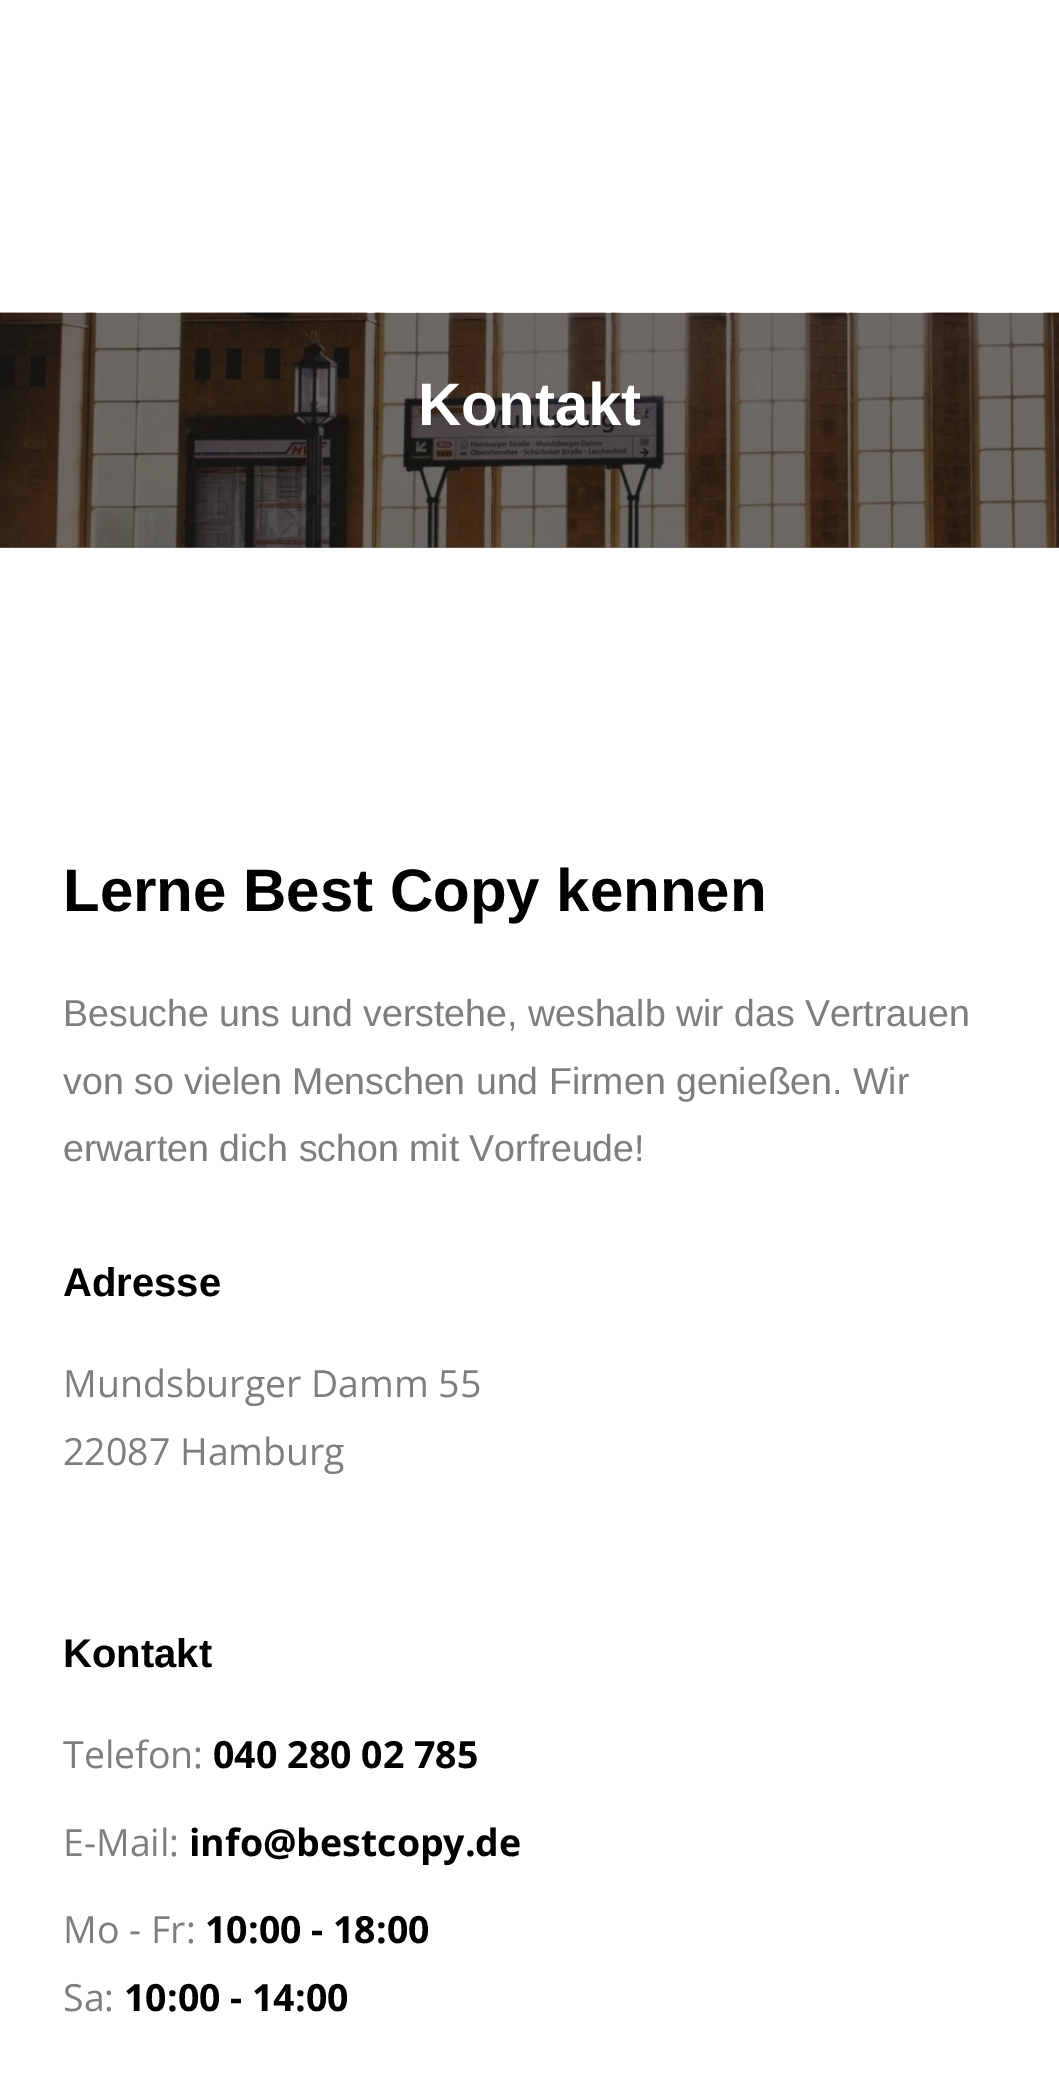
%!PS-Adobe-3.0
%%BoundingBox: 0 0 1059 2093
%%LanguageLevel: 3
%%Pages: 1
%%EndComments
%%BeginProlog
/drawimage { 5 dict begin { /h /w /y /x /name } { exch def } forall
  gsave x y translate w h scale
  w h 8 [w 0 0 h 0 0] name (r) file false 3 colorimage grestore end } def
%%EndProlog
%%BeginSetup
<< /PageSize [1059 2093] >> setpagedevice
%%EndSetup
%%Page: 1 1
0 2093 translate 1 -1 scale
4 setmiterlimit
1 setgray
0 0 1059 2093 rectfill
0.482 setgray
0 547 1059 1 rectfill
(images/1.raw) 0 312 1059 236 drawimage
/LiberationSans-Bold [60 0 0 -60 0 0] selectfont
1 setgray
418 425 moveto (Kontakt) show
0 setgray
63 911 moveto (Lerne Best Copy kennen) show
/LiberationSans-Regular [37.5 0 0 -37.5 0 0] selectfont
0.494 setgray
63 1026 moveto (Besuche uns und verstehe, weshalb wir das Vertrauen) show
63 1094 moveto (von so vielen Menschen und Firmen genießen. Wir) show
63 1161 moveto (erwarten dich schon mit Vorfreude!) show
/LiberationSans-Bold [40 0 0 -40 0 0] selectfont
0 setgray
63 1296 moveto (Adresse) show
/OpenSans-Regular [37.5 0 0 -37.5 0 0] selectfont
0.494 setgray
63 1397 moveto (Mundsburger Damm 55) show
63 1465 moveto (22087 Hamburg) show
/LiberationSans-Bold [40 0 0 -40 0 0] selectfont
0 setgray
63 1667 moveto (Kontakt) show
/OpenSans-Regular [37.5 0 0 -37.5 0 0] selectfont
0.494 setgray
63 1768 moveto (Telefon:) show
/OpenSans-Bold [37.5 0 0 -37.5 0 0] selectfont
0 setgray
213 1768 moveto (040 280 02 785) show
/OpenSans-Regular [37.5 0 0 -37.5 0 0] selectfont
0.494 setgray
63 1856 moveto (E-Mail:) show
/OpenSans-Bold [37.5 0 0 -37.5 0 0] selectfont
0 setgray
189 1856 moveto (info@bestcopy.de) show
/OpenSans-Regular [37.5 0 0 -37.5 0 0] selectfont
0.494 setgray
63 1943 moveto (Mo - Fr:) show
/OpenSans-Bold [37.5 0 0 -37.5 0 0] selectfont
0 setgray
205 1943 moveto (10:00 - 18:00) show
/OpenSans-Regular [37.5 0 0 -37.5 0 0] selectfont
0.494 setgray
63 2011 moveto (Sa:) show
/OpenSans-Bold [37.5 0 0 -37.5 0 0] selectfont
0 setgray
124 2011 moveto (10:00 - 14:00) show
showpage
%%EOF
